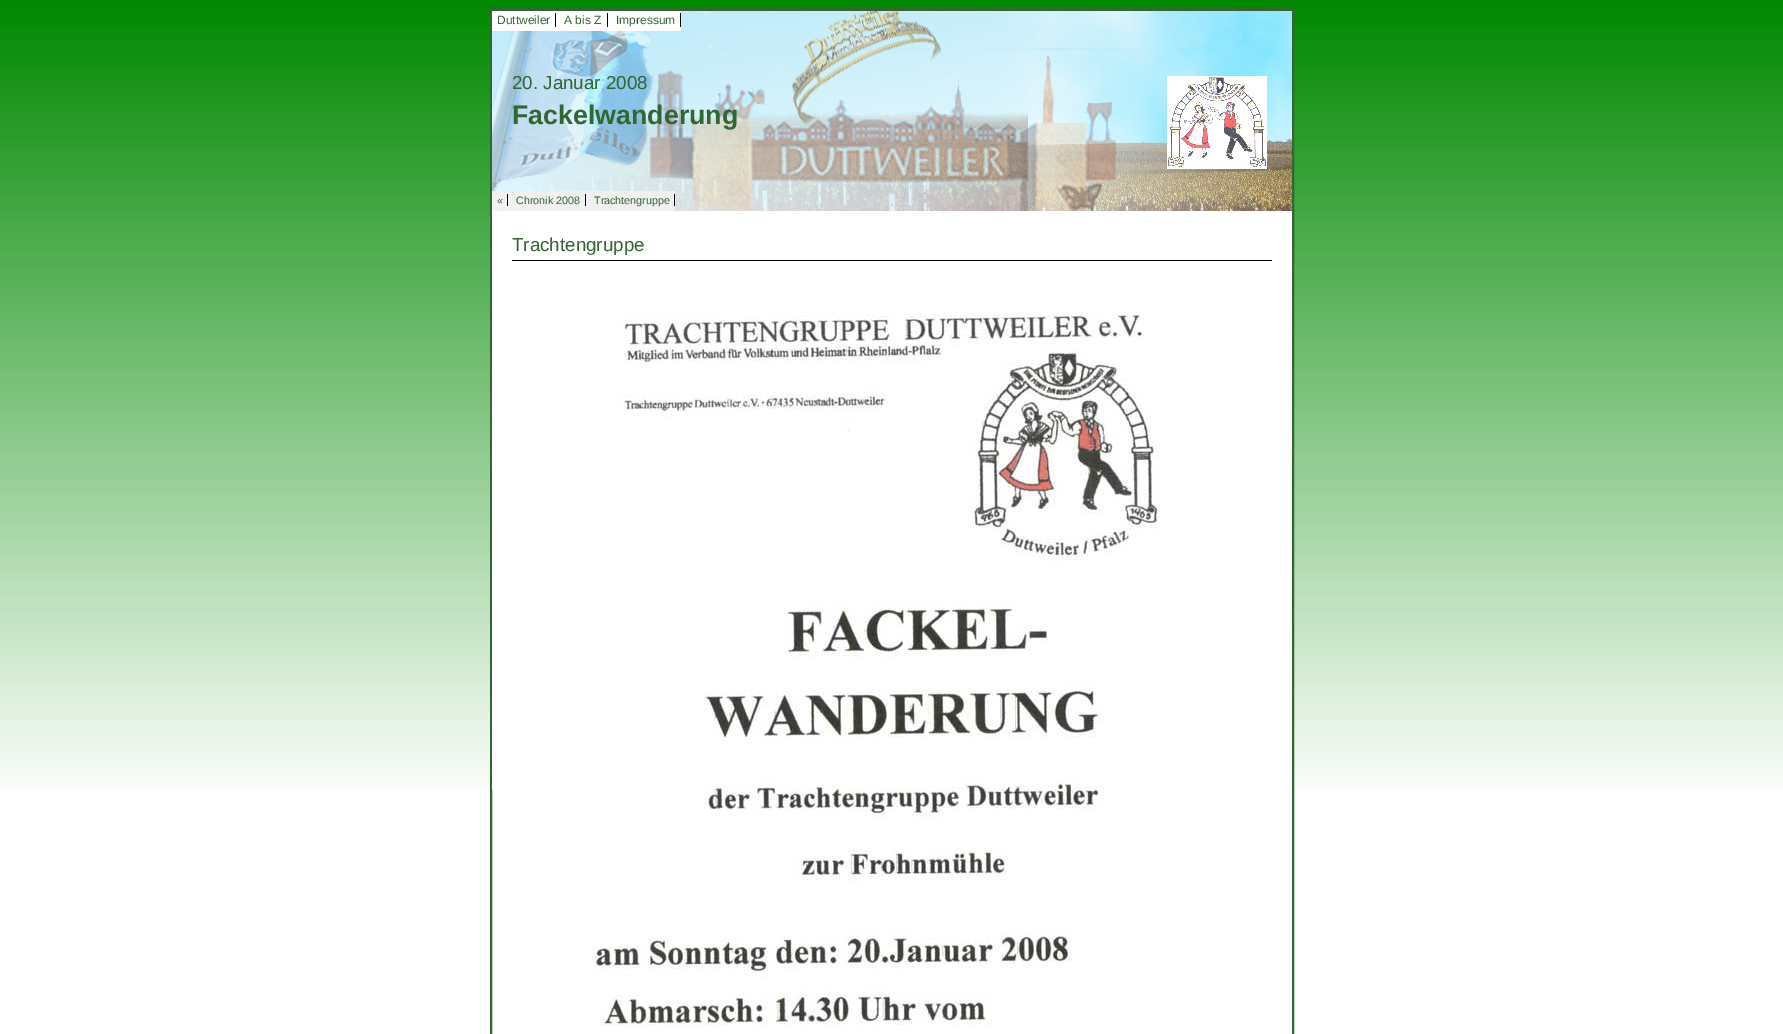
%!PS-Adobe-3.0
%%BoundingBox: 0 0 1783 1034
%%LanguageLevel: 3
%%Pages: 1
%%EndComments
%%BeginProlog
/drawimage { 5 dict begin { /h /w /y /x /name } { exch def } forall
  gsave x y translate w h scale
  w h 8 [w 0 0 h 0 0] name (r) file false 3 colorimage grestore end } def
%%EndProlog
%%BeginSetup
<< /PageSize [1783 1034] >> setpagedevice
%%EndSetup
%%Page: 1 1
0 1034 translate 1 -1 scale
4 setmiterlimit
1 setgray
0 0 1783 1034 rectfill
(images/1.raw) 0 0 1783 790 drawimage
0.2 0.4 0.2 setrgbcolor
2 setlinewidth
491 9 802 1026 rectstroke
(images/2.raw) 492 11 800 200 drawimage
492 10 800 1 rectfill
1 setgray
492 11 189 20 rectfill
0 setgray
555 13 1 14 rectfill
607 13 1 14 rectfill
680 13 1 14 rectfill
(images/3.raw) 1167 76 100 93 drawimage
0.941 setgray
492 191 183 20 rectfill
0 setgray
507 194 1 12 rectfill
585 194 1 12 rectfill
674 194 1 12 rectfill
1 setgray
492 211 800 579 rectfill
0 setgray
512 260 760 1 rectfill
(images/4.raw) 592 314 568 712 drawimage
/LiberationSans-Regular [12 0 0 -12 0 0] selectfont
0.2 0.4 0.2 setrgbcolor
497 24 moveto (Duttweiler) show
564 24 moveto (A bis Z) show
616 24 moveto (Impressum) show
/LiberationSans-Regular [18.75 0 0 -18.75 0 0] selectfont
512 89 moveto (20. Januar 2008) show
/LiberationSans-Bold [26.75 0 0 -26.75 0 0] selectfont
512 124 moveto (Fackelwanderung) show
/LiberationSans-Regular [10.75 0 0 -10.75 0 0] selectfont
497 204 moveto («) show
516 204 moveto (Chronik 2008) show
594 204 moveto (Trachtengruppe) show
/LiberationSans-Regular [18.75 0 0 -18.75 0 0] selectfont
512 251 moveto (Trachtengruppe) show
showpage
%%EOF
